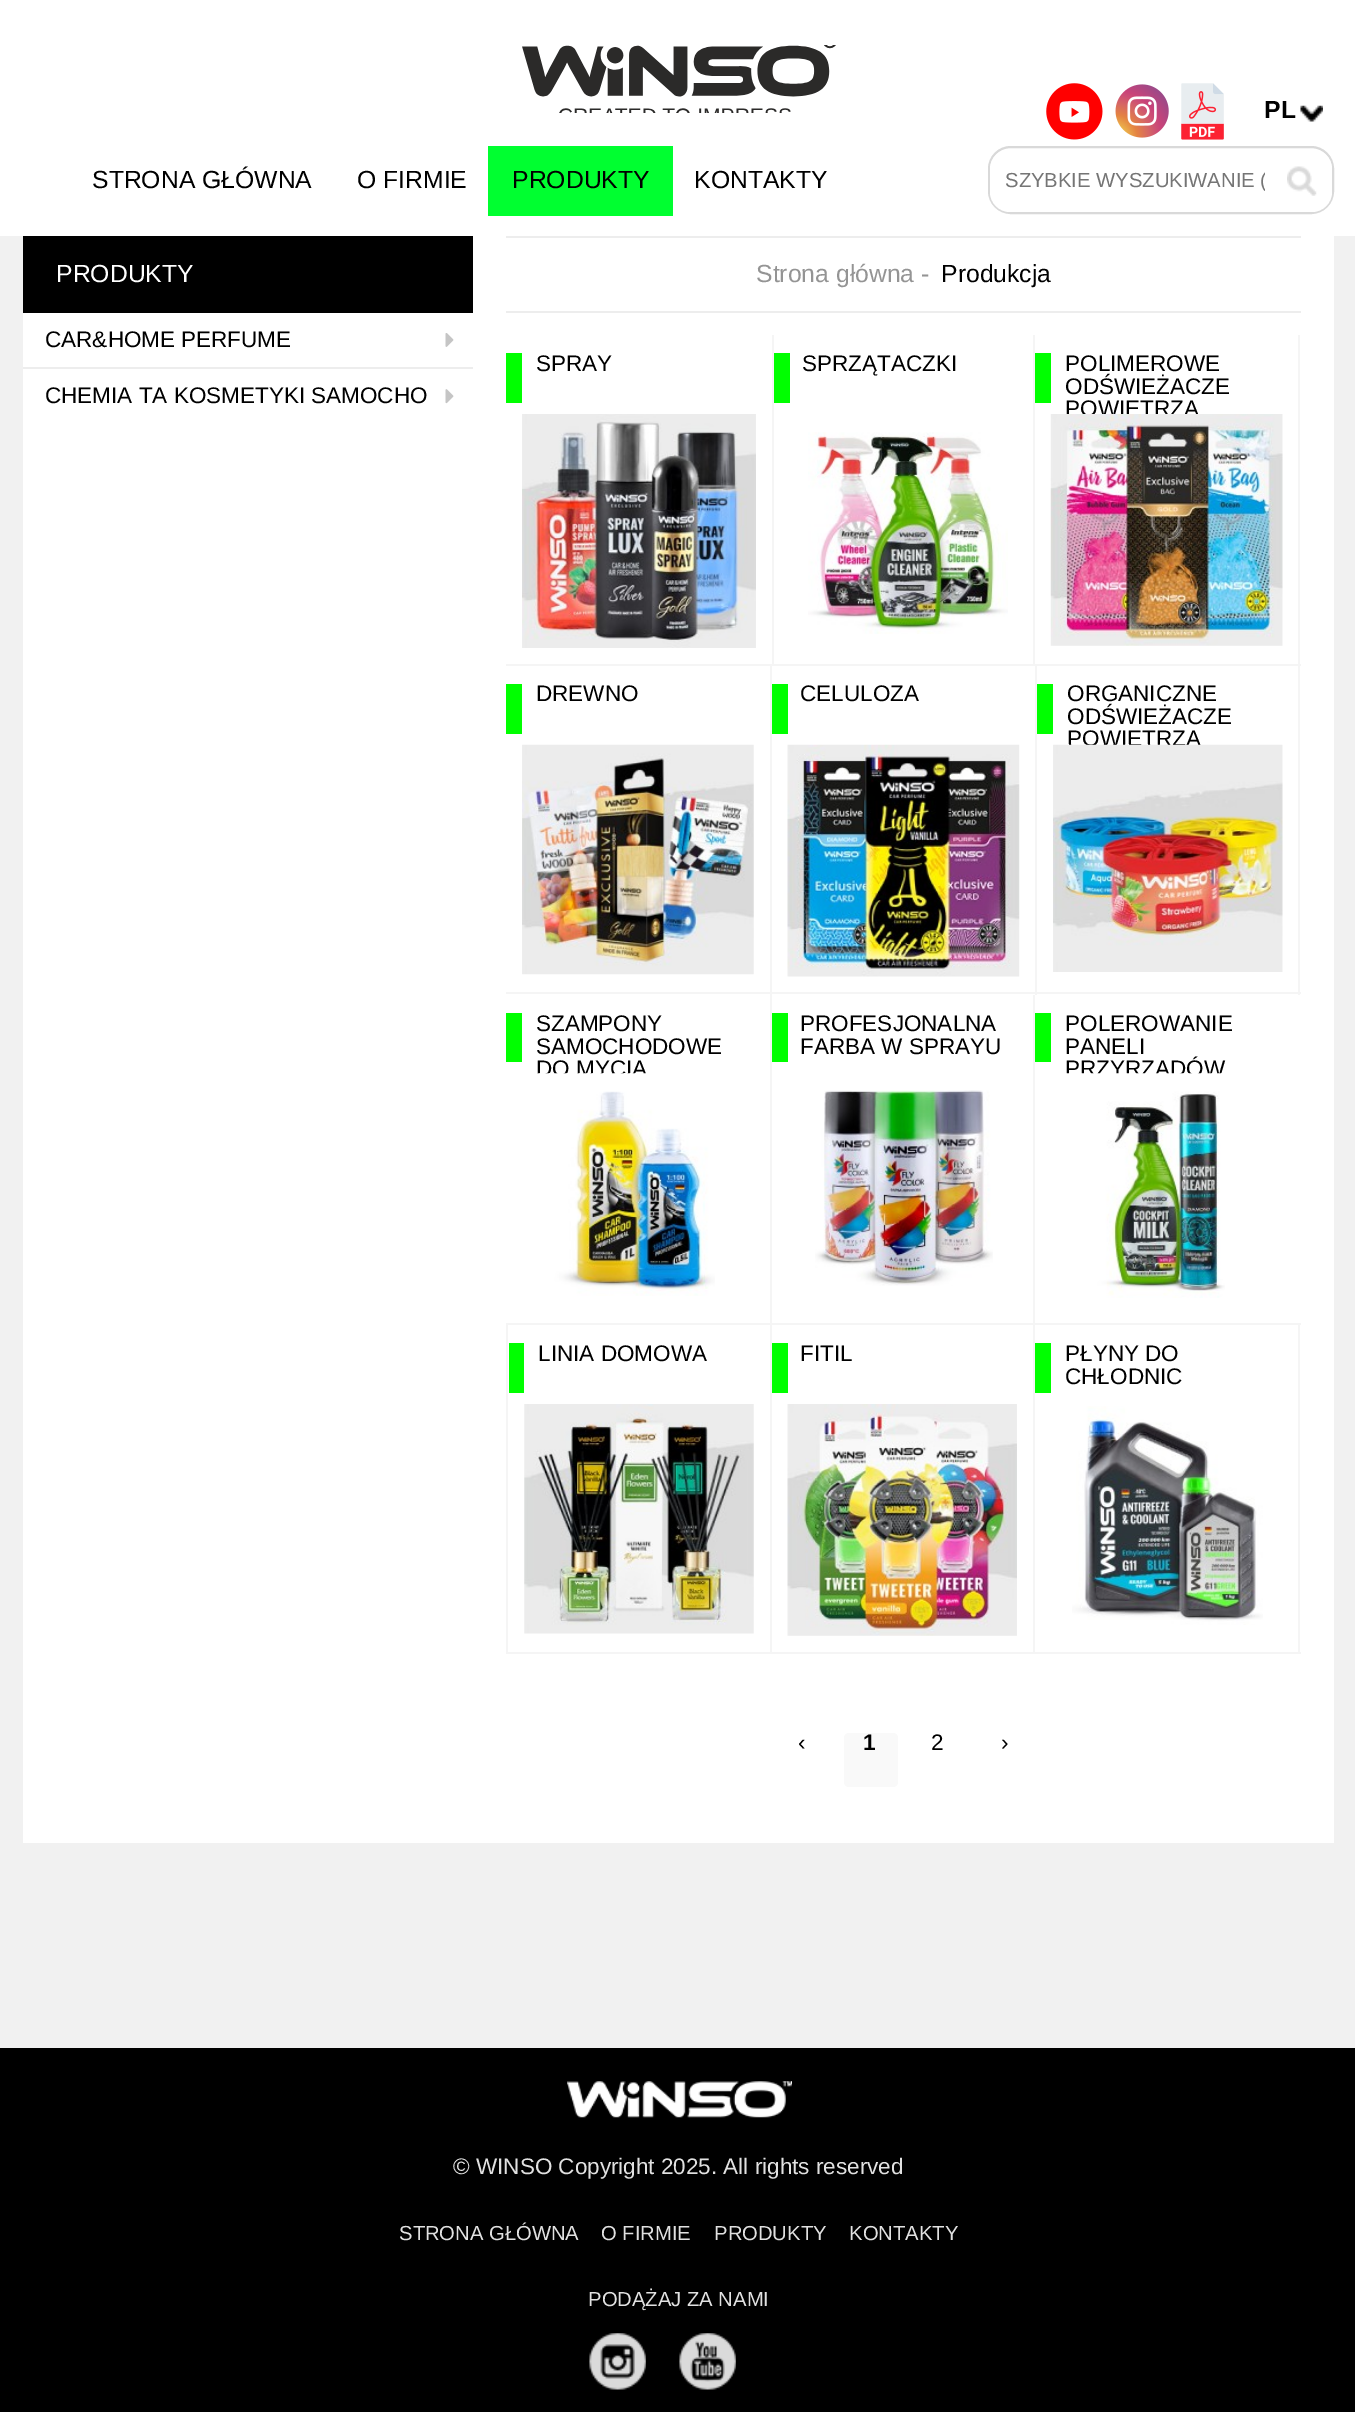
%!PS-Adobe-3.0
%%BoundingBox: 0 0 1355 2412
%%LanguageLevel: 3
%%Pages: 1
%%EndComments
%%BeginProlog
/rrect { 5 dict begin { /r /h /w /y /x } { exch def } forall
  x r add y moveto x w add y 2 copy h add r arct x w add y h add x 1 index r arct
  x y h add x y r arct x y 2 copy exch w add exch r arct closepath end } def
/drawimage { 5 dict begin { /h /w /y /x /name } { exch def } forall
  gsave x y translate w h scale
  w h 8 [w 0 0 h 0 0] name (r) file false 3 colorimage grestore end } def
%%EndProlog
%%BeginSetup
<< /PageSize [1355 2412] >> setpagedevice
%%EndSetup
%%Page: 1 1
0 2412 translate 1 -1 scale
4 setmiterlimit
0.945 setgray
0 0 1355 2412 rectfill
1 setgray
0 0 1355 236 rectfill
(images/1.raw) 522 45 314 68 drawimage
0 1 0.188 setrgbcolor
488 146 185 70 rectfill
(images/2.raw) 1046 83 57 57 drawimage
(images/3.raw) 1115 84 54 54 drawimage
(images/4.raw) 1181 83 43 57 drawimage
(images/5.raw) 1300 105 23 17 drawimage
0.851 setgray
2 setlinewidth
989 147 344 66 22 rrect stroke
1 setgray
newpath 1010 149 moveto 1271 149 lineto 1271 212 lineto 1010 212 lineto 999 212 990 203 990 192 curveto 990 169 lineto 990 158 999 149 1010 149 curveto closepath fill
newpath 1271 149 moveto 1312 149 lineto 1323 149 1332 158 1332 169 curveto 1332 192 lineto 1332 203 1323 212 1312 212 curveto 1271 212 lineto closepath fill
(images/6.raw) 1287 166 30 30 drawimage
23 313 450 1530 rectfill
0 setgray
23 236 450 77 rectfill
0.929 setgray
23 367 450 2 rectfill
(images/7.raw) 445 333 9 14 drawimage
(images/8.raw) 445 389 9 15 drawimage
1 setgray
473 236 861 1607 rectfill
0.929 setgray
506 236 795 2 rectfill
506 311 795 2 rectfill
0.961 setgray
506 664 266 2 rectfill
0 1 0 setrgbcolor
506 353 16 50 rectfill
(images/9.raw) 522 414 234 234 drawimage
0.961 setgray
1033 335 2 331 rectfill
772 664 263 2 rectfill
772 335 2 331 rectfill
0 1 0 setrgbcolor
774 353 16 50 rectfill
(images/10.raw) 808 432 200 202 drawimage
0.961 setgray
1298 335 2 660 rectfill
1035 664 266 2 rectfill
0 1 0 setrgbcolor
1035 353 16 50 rectfill
0.961 setgray
770 666 2 988 rectfill
506 992 795 2 rectfill
0 1 0 setrgbcolor
506 684 16 50 rectfill
(images/12.raw) 522 744 232 231 drawimage
772 684 16 50 rectfill
(images/13.raw) 787 744 233 233 drawimage
0.961 setgray
1035 666 2 329 rectfill
0 1 0 setrgbcolor
1037 684 16 50 rectfill
0.961 setgray
506 1323 266 2 rectfill
0 1 0 setrgbcolor
506 1013 16 49 rectfill
0.961 setgray
1033 995 2 659 rectfill
772 1323 529 2 rectfill
0 1 0 setrgbcolor
772 1013 16 49 rectfill
(images/16.raw) 815 1090 178 196 drawimage
1035 1013 16 49 rectfill
0.961 setgray
506 1652 529 2 rectfill
506 1325 2 329 rectfill
0 1 0 setrgbcolor
509 1343 15 50 rectfill
(images/18.raw) 524 1404 230 230 drawimage
772 1343 16 50 rectfill
(images/19.raw) 787 1404 230 232 drawimage
0.961 setgray
1298 1325 2 329 rectfill
1035 1652 266 2 rectfill
0 1 0 setrgbcolor
1035 1343 16 50 rectfill
(images/20.raw) 1072 1406 191 219 drawimage
0.976 setgray
844 1733 54 54 5 rrect fill
0 setgray
0 2048 1355 364 rectfill
(images/21.raw) 567 2081 225 37 drawimage
(images/22.raw) 589 2333 57 57 drawimage
(images/23.raw) 679 2333 57 57 drawimage
/LiberationSans-Regular [24.75 0 0 -24.75 0 0] selectfont
92 188 moveto (STRONA GŁÓWNA) show
357 188 moveto (O FIRMIE) show
512 188 moveto (PRODUKTY) show
694 188 moveto (KONTAKTY) show
/LiberationSans-Bold [24.75 0 0 -24.75 0 0] selectfont
1264 118 moveto (PL) show
gsave
1006 169 259 22 rectclip
/LiberationSans-Regular [20.25 0 0 -20.25 0 0] selectfont
0.459 setgray
1005 187 moveto (SZYBKIE WYSZUKIWANIE \() show
grestore
/LiberationSans-Regular [24.75 0 0 -24.75 0 0] selectfont
1 setgray
56 282 moveto (PRODUKTY) show
/LiberationSans-Regular [22.5 0 0 -22.5 0 0] selectfont
0 setgray
45 347 moveto (CAR&HOME PERFUME) show
45 403 moveto (CHEMIA TA KOSMETYKI SAMOCHO) show
/LiberationSans-Regular [24.75 0 0 -24.75 0 0] selectfont
0.58 setgray
756 282 moveto (Strona główna -) show
0 setgray
941 282 moveto (Produkcja) show
/LiberationSans-Regular [22.5 0 0 -22.5 0 0] selectfont
536 371 moveto (SPRAY) show
802 371 moveto (SPRZĄTACZKI) show
1065 371 moveto (POLIMEROWE) show
1065 394 moveto (ODŚWIEŻACZE) show
1065 416 moveto (POWIETRZA) show
(images/11.raw) 1050 414 233 232 drawimage
536 701 moveto (DREWNO) show
800 701 moveto (CELULOZA) show
1067 701 moveto (ORGANICZNE) show
1067 724 moveto (ODŚWIEŻACZE) show
1067 746 moveto (POWIETRZA) show
(images/14.raw) 1053 744 230 228 drawimage
536 1031 moveto (SZAMPONY) show
536 1054 moveto (SAMOCHODOWE) show
536 1076 moveto (DO MYCIA) show
(images/15.raw) 537 1073 178 223 drawimage
800 1031 moveto (PROFESJONALNA) show
800 1054 moveto (FARBA W SPRAYU) show
1065 1031 moveto (POLEROWANIE) show
1065 1054 moveto (PANELI) show
1065 1076 moveto (PRZYRZĄDÓW) show
(images/17.raw) 1066 1073 159 225 drawimage
538 1361 moveto (LINIA DOMOWA) show
800 1361 moveto (FITIL) show
1065 1361 moveto (PŁYNY DO) show
1065 1384 moveto (CHŁODNIC) show
798 1750 moveto (‹) show
/LiberationSans-Bold [22.5 0 0 -22.5 0 0] selectfont
863 1750 moveto (1) show
/LiberationSans-Regular [22.5 0 0 -22.5 0 0] selectfont
931 1750 moveto (2) show
1001 1750 moveto (›) show
0.882 setgray
453 2174 moveto (© WINSO Copyright 2025. All rights reserved) show
/LiberationSans-Regular [20.25 0 0 -20.25 0 0] selectfont
399 2240 moveto (STRONA GŁÓWNA) show
601 2240 moveto (O FIRMIE) show
714 2240 moveto (PRODUKTY) show
849 2240 moveto (KONTAKTY) show
588 2306 moveto (PODĄŻAJ ZA NAMI) show
showpage
%%EOF
